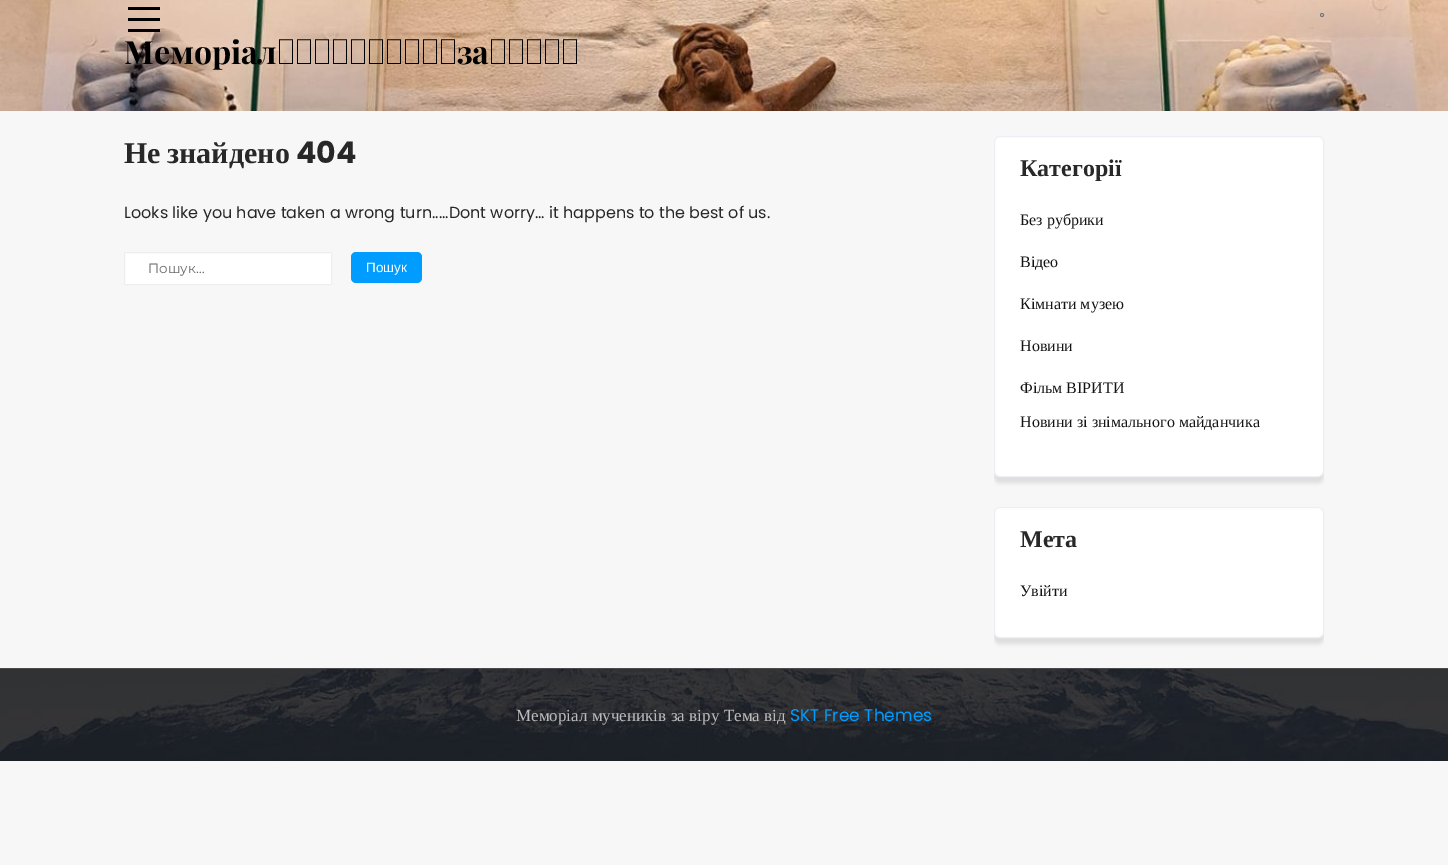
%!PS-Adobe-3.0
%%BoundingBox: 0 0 1448 865
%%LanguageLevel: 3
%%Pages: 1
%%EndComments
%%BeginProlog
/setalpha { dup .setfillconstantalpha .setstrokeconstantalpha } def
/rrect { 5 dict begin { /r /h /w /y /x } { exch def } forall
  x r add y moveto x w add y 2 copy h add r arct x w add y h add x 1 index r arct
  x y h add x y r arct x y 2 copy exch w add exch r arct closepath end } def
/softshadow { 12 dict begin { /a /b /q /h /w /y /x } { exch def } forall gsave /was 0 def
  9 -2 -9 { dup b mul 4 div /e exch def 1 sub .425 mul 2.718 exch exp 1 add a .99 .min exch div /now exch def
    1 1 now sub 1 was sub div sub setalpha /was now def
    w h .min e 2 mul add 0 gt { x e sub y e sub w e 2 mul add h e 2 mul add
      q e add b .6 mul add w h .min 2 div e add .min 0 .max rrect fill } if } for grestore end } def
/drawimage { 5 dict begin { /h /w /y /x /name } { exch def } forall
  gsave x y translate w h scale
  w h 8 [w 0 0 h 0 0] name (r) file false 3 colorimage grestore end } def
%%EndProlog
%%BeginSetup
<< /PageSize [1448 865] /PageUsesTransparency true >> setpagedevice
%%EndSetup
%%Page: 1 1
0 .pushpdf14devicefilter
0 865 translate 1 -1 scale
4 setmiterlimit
0.969 setgray
0 0 1448 865 rectfill
(images/1.raw) 0 0 1448 111 drawimage
0.937 setgray
newpath 1322 15 1.5 0 360 arc closepath gsave fill grestore
0.463 setgray
stroke
0 setgray
128 7 32 3 rectfill
128 18 32 3 rectfill
128 29 32 3 rectfill
1 setgray
newpath 124.5 252.5 moveto 331.5 252.5 lineto 331.5 284.5 lineto 124.5 284.5 lineto closepath gsave fill grestore
0.933 setgray
stroke
0 0.612 1 setrgbcolor
351 252 71 31 5 rrect fill
gsave
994 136 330 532 rectclip
0.863 setgray
994 142 330 341 6 2 1 softshadow
grestore
1 setgray
994.5 136.5 329 340 5.5 rrect gsave fill grestore
0.933 0.937 0.961 setrgbcolor
stroke
gsave
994 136 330 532 rectclip
0.863 setgray
994 513 330 131 6 2 1 softshadow
grestore
1 setgray
994.5 507.5 329 130 5.5 rrect gsave fill grestore
0.933 0.937 0.961 setrgbcolor
stroke
(images/2.raw) 0 669 1448 92 drawimage
0.29 setgray
0 668 1448 1 rectfill
/PlayfairDisplay-Bold [32 0 0 -32 0 0] selectfont
0 setgray
124 64 moveto (Меморіал мучеників за віру) show
/LiberationSerif-Bold [30 0 0 -30 0 0] selectfont
0.157 setgray
124 163 moveto -1 0 32 (Не знайдено) widthshow
/Poppins-Bold [30 0 0 -30 0 0] selectfont
296 163 moveto (404) show
/Poppins-Regular [16 0 0 -16 0 0] selectfont
124 218 moveto (Looks like you have taken a wrong turn.....Dont worry... it happens to the best of us.) show
/Montserrat-Regular [13.5 0 0 -13.5 0 0] selectfont
0.408 setgray
148 273 moveto (Пошук…) show
/LiberationSans-Regular [13.5 0 0 -13.5 0 0] selectfont
1 setgray
366 272 moveto (Пошук) show
/LiberationSerif-Bold [24 0 0 -24 0 0] selectfont
0.157 setgray
1020 176 moveto (Категорії) show
/LiberationSerif-Regular [16 0 0 -16 0 0] selectfont
0.078 setgray
1020 225 moveto (Без рубрики) show
1020 267 moveto (Відео) show
1020 309 moveto (Кімнати музею) show
1020 351 moveto (Новини) show
1020 393 moveto (Фільм ВІРИТИ) show
1020 427 moveto (Новини зі знімального майданчика) show
/LiberationSerif-Bold [24 0 0 -24 0 0] selectfont
0.157 setgray
1020 547 moveto (Мета) show
/LiberationSerif-Regular [16 0 0 -16 0 0] selectfont
0.078 setgray
1020 596 moveto (Увійти) show
/LiberationSerif-Regular [17 0 0 -17 0 0] selectfont
0.737 0.733 0.733 setrgbcolor
516 721 moveto 0.25 0 32 (Меморіал мучеників за віру Тема від) widthshow
/Poppins-Regular [17 0 0 -17 0 0] selectfont
0 0.612 1 setrgbcolor
790 721 moveto (SKT Free Themes) show
.poppdf14devicefilter showpage
%%EOF
